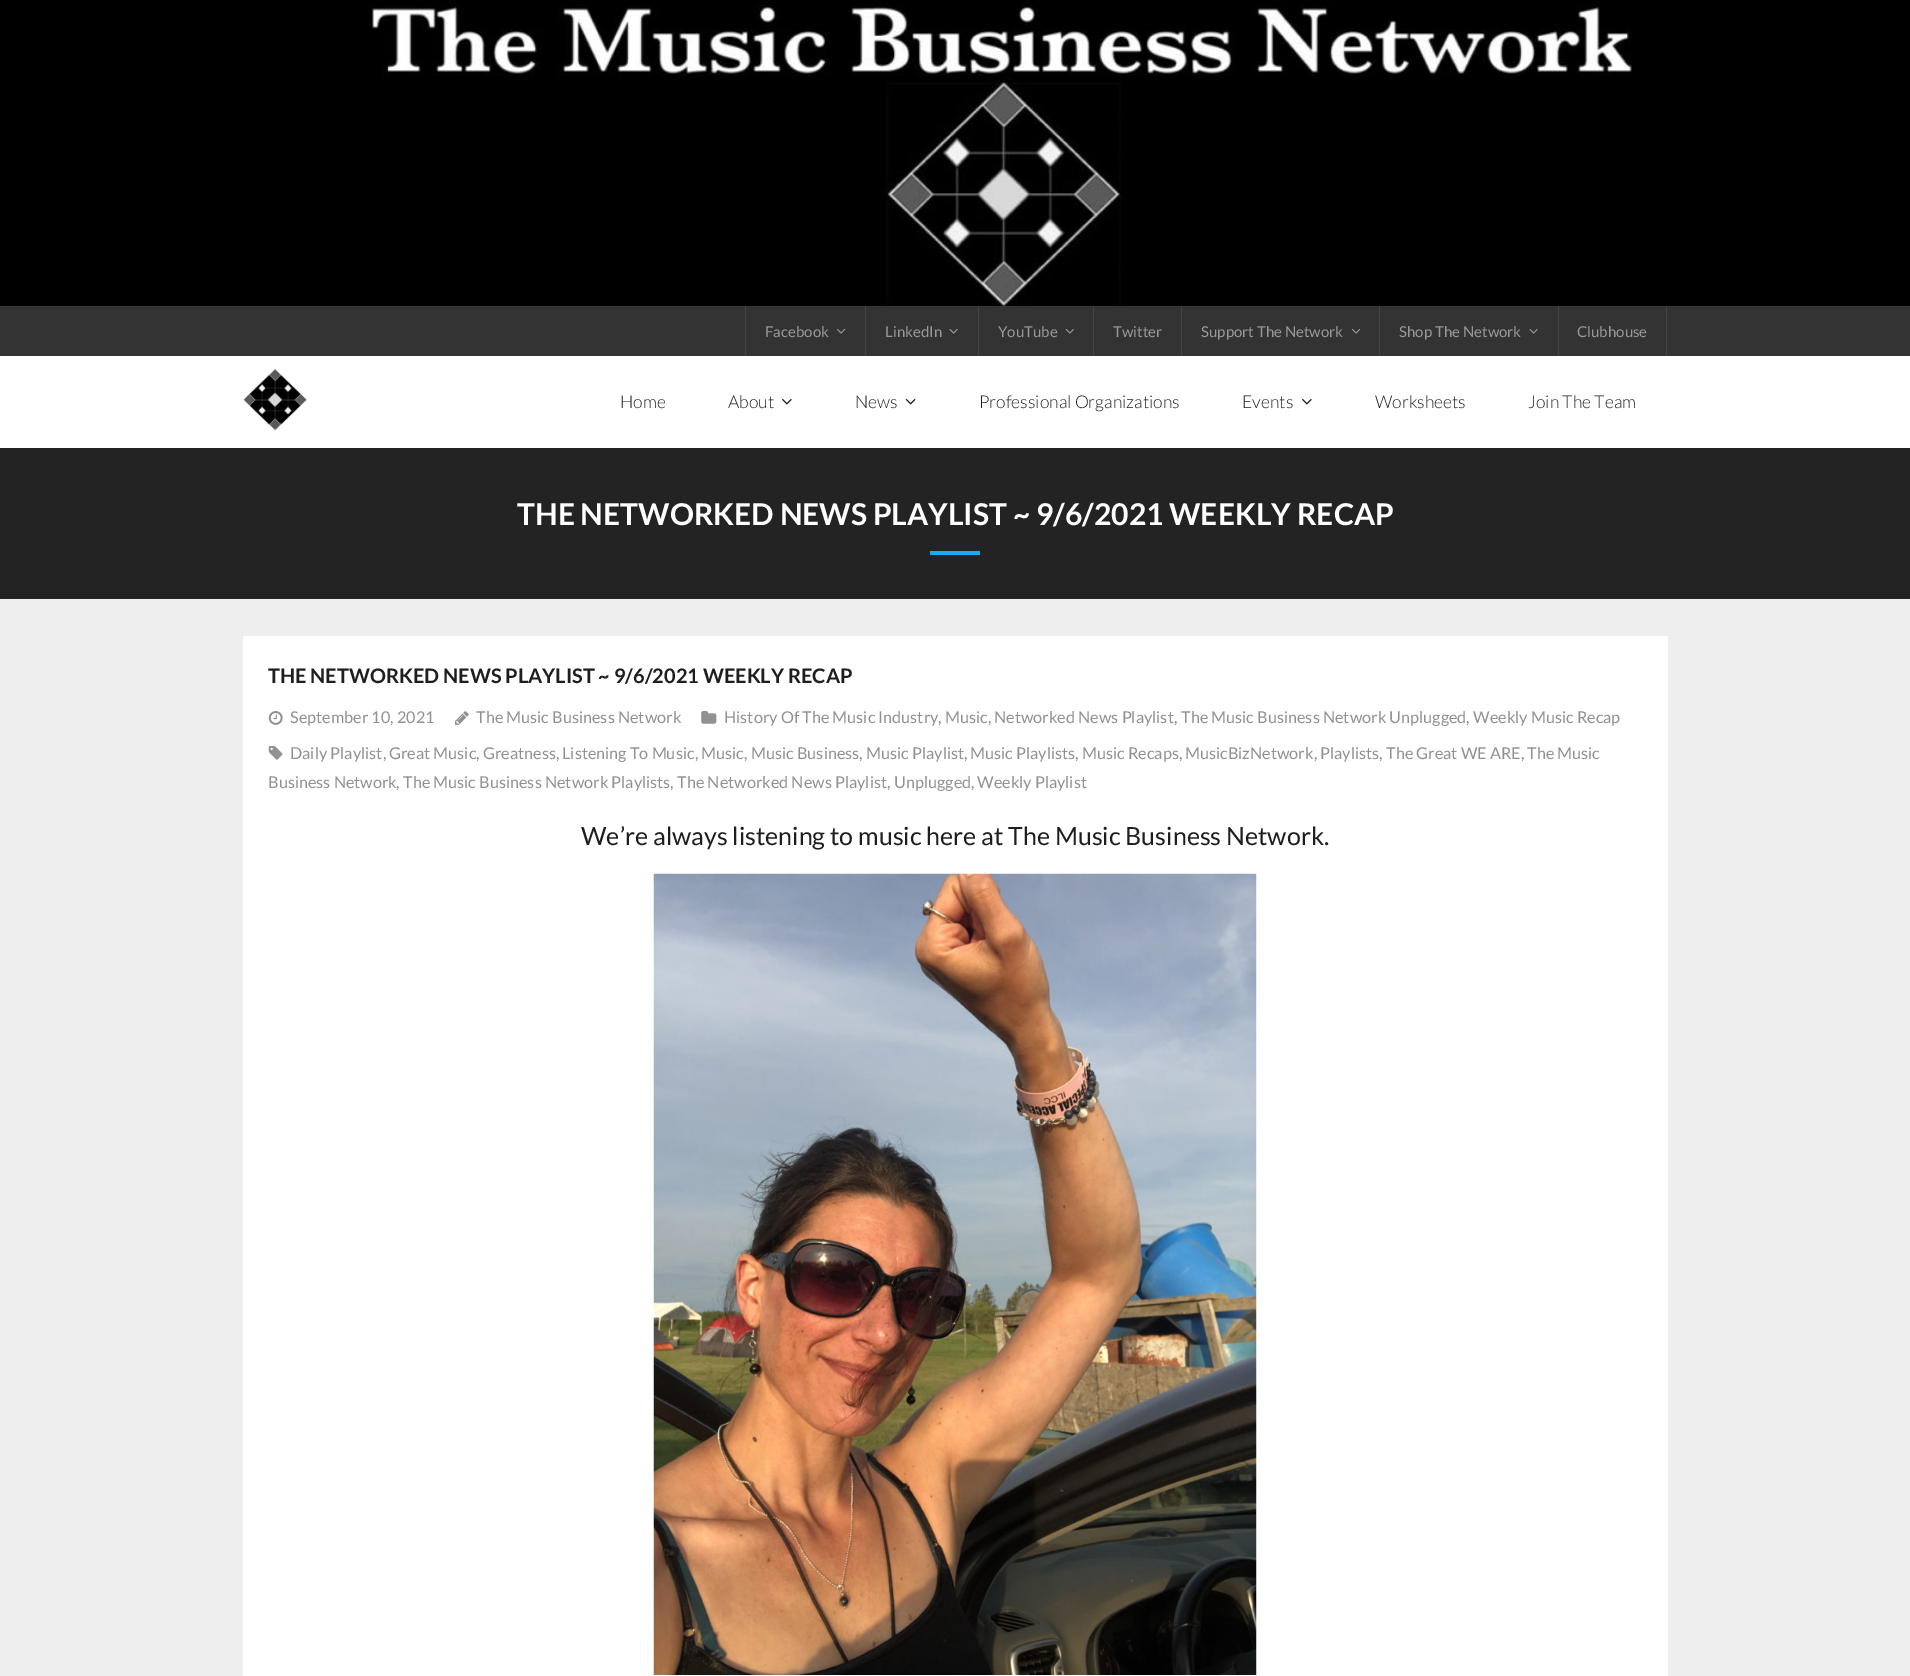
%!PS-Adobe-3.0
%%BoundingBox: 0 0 1910 1676
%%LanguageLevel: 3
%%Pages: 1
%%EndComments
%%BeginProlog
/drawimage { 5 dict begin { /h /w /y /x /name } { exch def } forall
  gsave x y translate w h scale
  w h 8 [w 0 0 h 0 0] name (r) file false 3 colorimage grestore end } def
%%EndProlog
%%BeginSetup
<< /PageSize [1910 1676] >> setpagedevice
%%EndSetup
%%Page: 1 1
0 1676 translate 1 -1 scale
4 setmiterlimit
0.933 setgray
0 0 1910 1676 rectfill
(images/1.raw) 0 0 1910 306 drawimage
0.2 setgray
0 306 1910 50 rectfill
0.267 setgray
745 306 1 50 rectfill
(images/2.raw) 837 328 9 6 drawimage
865 306 1 50 rectfill
(images/3.raw) 949 329 9 5 drawimage
978 306 1 50 rectfill
(images/4.raw) 1065 328 9 6 drawimage
1093 306 1 50 rectfill
1181 306 1 50 rectfill
(images/2.raw) 1352 328 9 6 drawimage
1379 306 1 50 rectfill
(images/3.raw) 1529 329 9 5 drawimage
1666 306 1 50 rectfill
1558 306 1 50 rectfill
1 setgray
0 356 1910 92 rectfill
(images/5.raw) 243 368 64 63 drawimage
(images/6.raw) 782 398 10 7 drawimage
(images/7.raw) 905 398 11 7 drawimage
(images/6.raw) 1302 398 10 7 drawimage
0.137 setgray
0 448 1910 151 rectfill
0.118 0.667 0.945 setrgbcolor
930 551 50 4 rectfill
1 setgray
243 636 1425 1040 rectfill
(images/8.raw) 268 711 15 14 drawimage
(images/9.raw) 455 711 14 14 drawimage
(images/10.raw) 701 711 16 13 drawimage
(images/11.raw) 268 746 15 14 drawimage
(images/12.raw) 653 873 604 802 drawimage
/Lato-Regular [15 0 0 -15 0 0] selectfont
0.6 setgray
765 337 moveto (Facebook) show
885 337 moveto (LinkedIn) show
998 337 moveto (YouTube) show
1113 337 moveto (Twitter) show
1201 337 moveto (Support The Network) show
1399 337 moveto (Shop The Network) show
1577 337 moveto (Clubhouse) show
/Lato-Light [17.5 0 0 -17.5 0 0] selectfont
0.118 setgray
620 408 moveto (Home) show
728 408 moveto (About) show
855 408 moveto (News) show
979 408 moveto (Professional Organizations) show
1242 408 moveto (Events) show
1375 408 moveto (Worksheets) show
1528 408 moveto (Join The Team) show
/Lato-Bold [30 0 0 -30 0 0] selectfont
1 setgray
517 525 moveto (THE NETWORKED NEWS PLAYLIST ~ 9/6/2021 WEEKLY RECAP) show
/Lato-Bold [20 0 0 -20 0 0] selectfont
0.118 setgray
268 683 moveto (THE NETWORKED NEWS PLAYLIST ~ 9/6/2021 WEEKLY RECAP) show
/Lato-Regular [16.25 0 0 -16.25 0 0] selectfont
0.569 setgray
290 723 moveto (September 10, 2021) show
476 723 moveto (The Music Business Network) show
724 723 moveto (History Of The Music Industry) show
0.522 setgray
938 723 moveto (,) show
0.569 setgray
945 723 moveto (Music) show
0.522 setgray
988 723 moveto (,) show
0.569 setgray
994 723 moveto (Networked News Playlist) show
0.522 setgray
1174 723 moveto (,) show
0.569 setgray
1181 723 moveto (The Music Business Network Unplugged) show
0.522 setgray
1466 723 moveto (,) show
0.569 setgray
1473 723 moveto (Weekly Music Recap) show
290 759 moveto (Daily Playlist) show
0.522 setgray
383 759 moveto (,) show
0.569 setgray
389 759 moveto (Great Music) show
0.522 setgray
476 759 moveto (,) show
0.569 setgray
483 759 moveto (Greatness) show
0.522 setgray
556 759 moveto (,) show
0.569 setgray
562 759 moveto (Listening To Music) show
0.522 setgray
695 759 moveto (,) show
0.569 setgray
701 759 moveto (Music) show
0.522 setgray
744 759 moveto (,) show
0.569 setgray
751 759 moveto (Music Business) show
0.522 setgray
859 759 moveto (,) show
0.569 setgray
866 759 moveto (Music Playlist) show
0.522 setgray
964 759 moveto (,) show
0.569 setgray
970 759 moveto (Music Playlists) show
0.522 setgray
1075 759 moveto (,) show
0.569 setgray
1082 759 moveto (Music Recaps) show
0.522 setgray
1179 759 moveto (,) show
0.569 setgray
1185 759 moveto (MusicBizNetwork) show
0.522 setgray
1314 759 moveto (,) show
0.569 setgray
1320 759 moveto (Playlists) show
0.522 setgray
1379 759 moveto (,) show
0.569 setgray
1386 759 moveto (The Great WE ARE) show
0.522 setgray
1521 759 moveto (,) show
0.569 setgray
1527 759 moveto (The Music) show
268 788 moveto (Business Network) show
0.522 setgray
396 788 moveto (,) show
0.569 setgray
403 788 moveto (The Music Business Network Playlists) show
0.522 setgray
670 788 moveto (,) show
0.569 setgray
677 788 moveto (The Networked News Playlist) show
0.522 setgray
887 788 moveto (,) show
0.569 setgray
894 788 moveto (Unplugged) show
0.522 setgray
971 788 moveto (,) show
0.569 setgray
977 788 moveto (Weekly Playlist) show
/Lato-Regular [25 0 0 -25 0 0] selectfont
0.118 setgray
581 845 moveto (We’re always listening to music here at The Music Business Network.) show
showpage
%%EOF
